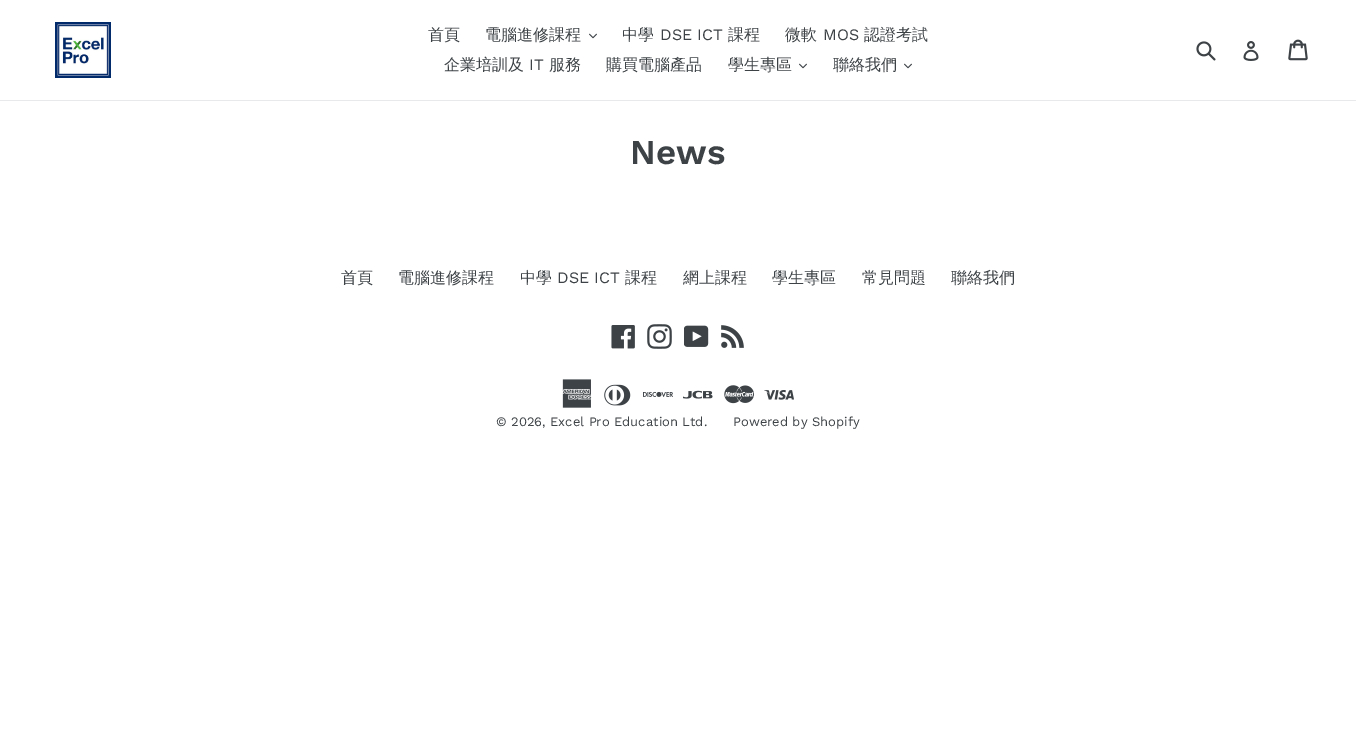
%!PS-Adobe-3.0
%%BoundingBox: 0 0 1356 730
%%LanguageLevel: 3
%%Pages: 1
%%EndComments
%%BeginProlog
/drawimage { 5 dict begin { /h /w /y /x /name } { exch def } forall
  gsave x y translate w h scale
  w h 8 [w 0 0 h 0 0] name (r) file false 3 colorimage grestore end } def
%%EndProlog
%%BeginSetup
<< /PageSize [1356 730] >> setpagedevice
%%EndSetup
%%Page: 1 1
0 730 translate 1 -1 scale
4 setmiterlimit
1 setgray
0 0 1356 730 rectfill
0.91 0.914 0.922 setrgbcolor
0 100 1356 1 rectfill
(images/1.raw) 55 22 56 56 drawimage
(images/2.raw) 589 33 8 6 drawimage
(images/2.raw) 799 63 8 6 drawimage
(images/2.raw) 904 63 8 6 drawimage
(images/3.raw) 1196 41 20 20 drawimage
(images/4.raw) 1243 41 16 20 drawimage
(images/5.raw) 1288 39 20 22 drawimage
(images/6.raw) 611 325 24 24 drawimage
(images/7.raw) 647 324 25 25 drawimage
(images/8.raw) 684 325 25 22 drawimage
(images/9.raw) 721 325 23 23 drawimage
(images/10.raw) 562 379 30 29 drawimage
(images/11.raw) 604 384 27 22 drawimage
(images/12.raw) 643 391 30 6 drawimage
(images/13.raw) 683 390 30 9 drawimage
(images/14.raw) 724 385 30 19 drawimage
(images/15.raw) 764 390 30 10 drawimage
/WenQuanYiZenHei-Medium [16 0 0 -16 0 0] selectfont
0.239 0.259 0.275 setrgbcolor
428 40 moveto (首頁) show
485 40 moveto (電腦進修課程) show
622 40 moveto (中學) show
/WorkSans-Regular [16 0 0 -16 0 0] selectfont
660 40 moveto (DSE ICT) show
/WenQuanYiZenHei-Medium [16 0 0 -16 0 0] selectfont
728 40 moveto (課程) show
785 40 moveto (微軟) show
/WorkSans-Regular [16 0 0 -16 0 0] selectfont
823 40 moveto (MOS) show
/WenQuanYiZenHei-Medium [16 0 0 -16 0 0] selectfont
864 40 moveto (認證考試) show
444 70 moveto (企業培訓及) show
/WorkSans-Regular [16 0 0 -16 0 0] selectfont
529 70 moveto (IT) show
/WenQuanYiZenHei-Medium [16 0 0 -16 0 0] selectfont
549 70 moveto (服務) show
606 70 moveto (購買電腦產品) show
728 70 moveto (學生專區) show
833 70 moveto (聯絡我們) show
/WorkSans-SemiBold [35 0 0 -35 0 0] selectfont
630 164 moveto (News) show
/WenQuanYiZenHei-Medium [16 0 0 -16 0 0] selectfont
341 283 moveto (首頁) show
398 283 moveto (電腦進修課程) show
520 283 moveto (中學) show
/WorkSans-Regular [16 0 0 -16 0 0] selectfont
557 283 moveto (DSE ICT) show
/WenQuanYiZenHei-Medium [16 0 0 -16 0 0] selectfont
625 283 moveto (課程) show
683 283 moveto (網上課程) show
772 283 moveto (學生專區) show
862 283 moveto (常見問題) show
951 283 moveto (聯絡我們) show
/WorkSans-Regular [13 0 0 -13 0 0] selectfont
496 426 moveto (© 2026, Excel Pro Education Ltd.) show
733 426 moveto (Powered by Shopify) show
showpage
%%EOF
